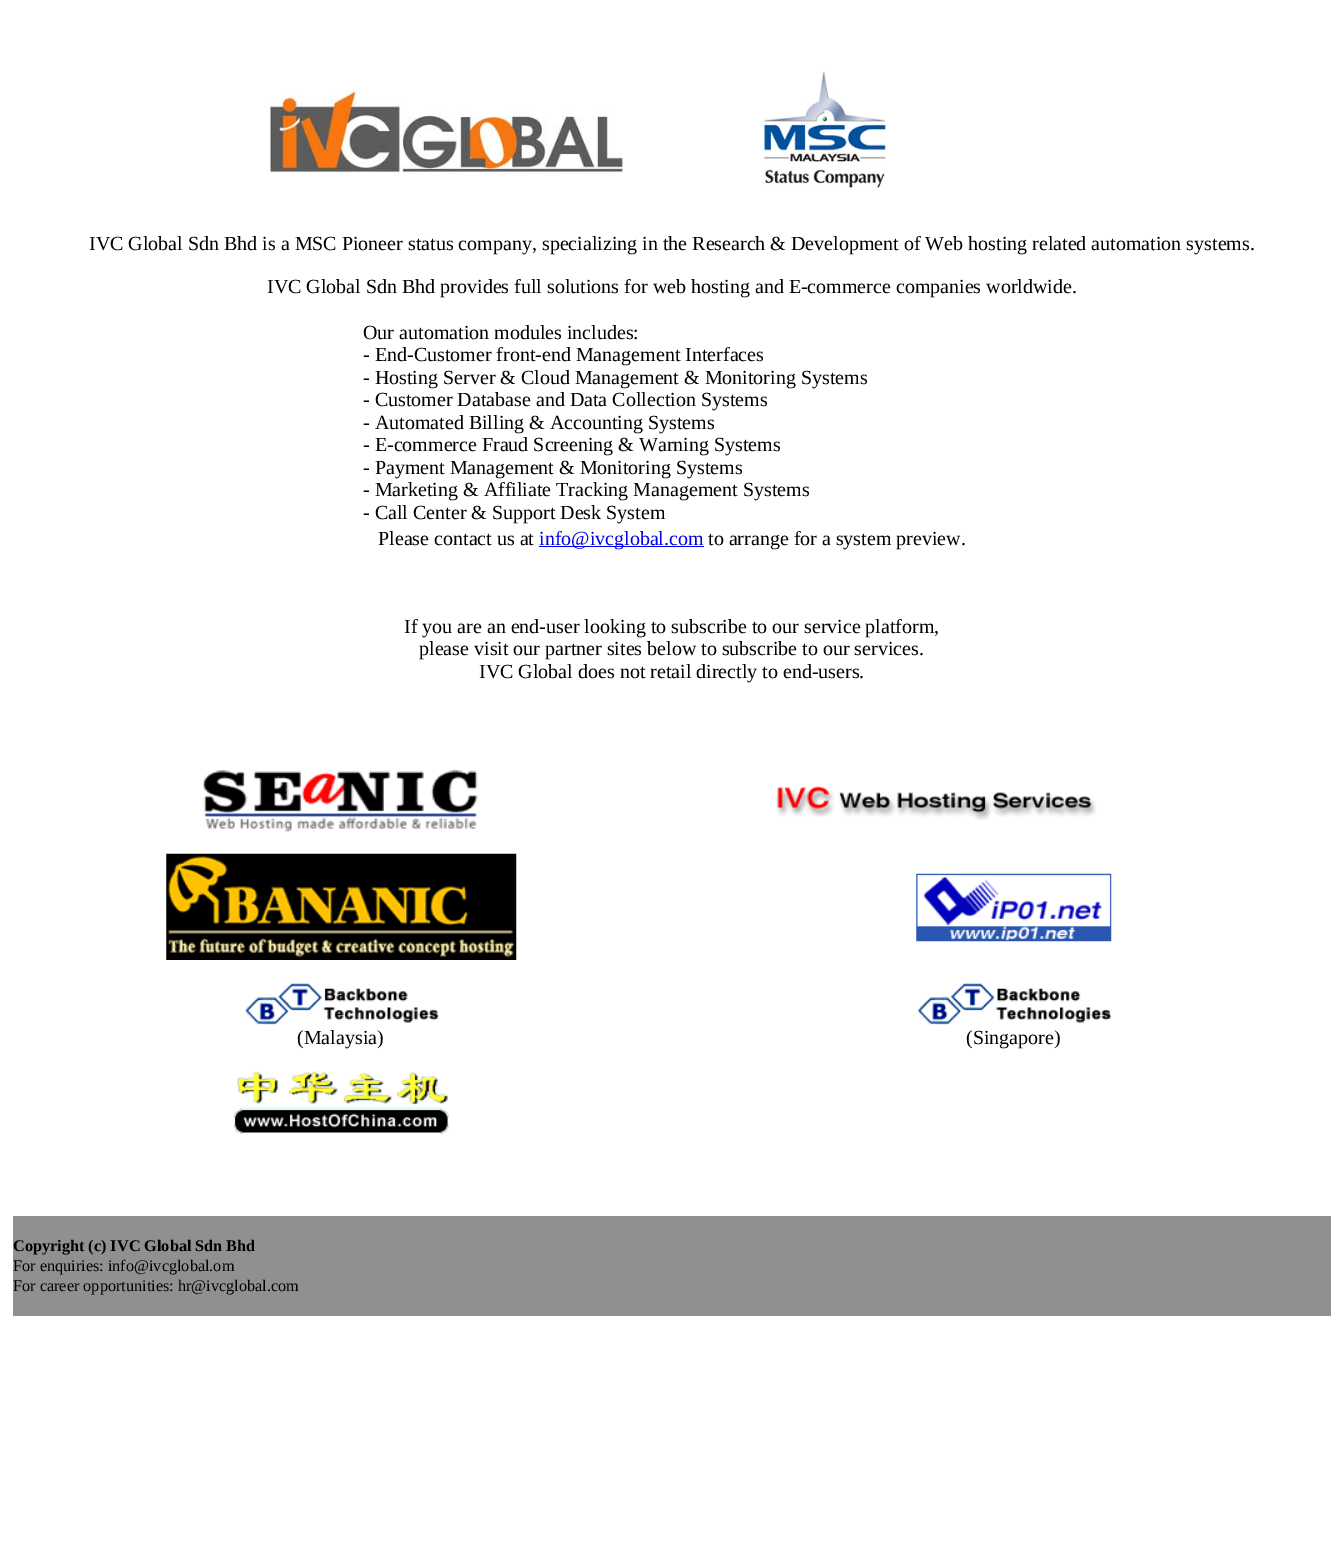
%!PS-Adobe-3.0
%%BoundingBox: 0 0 1343 1566
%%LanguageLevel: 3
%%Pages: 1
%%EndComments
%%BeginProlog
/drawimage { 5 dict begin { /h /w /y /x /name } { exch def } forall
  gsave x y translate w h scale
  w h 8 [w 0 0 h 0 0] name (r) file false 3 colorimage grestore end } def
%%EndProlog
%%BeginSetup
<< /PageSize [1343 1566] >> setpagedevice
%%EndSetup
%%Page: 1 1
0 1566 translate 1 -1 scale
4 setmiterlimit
1 setgray
0 0 1343 1566 rectfill
(images/1.raw) 269 88 354 85 drawimage
(images/2.raw) 763 71 123 118 drawimage
0 0 0.933 setrgbcolor
539 546 165 1 rectfill
(images/3.raw) 203 770 275 62 drawimage
(images/4.raw) 776 786 321 35 drawimage
(images/5.raw) 166 853 351 107 drawimage
(images/6.raw) 916 873 196 69 drawimage
(images/7.raw) 245 983 194 42 drawimage
(images/8.raw) 917 983 195 42 drawimage
(images/9.raw) 233 1071 216 63 drawimage
0.565 setgray
13 1216 1318 100 rectfill
/LiberationSerif-Regular [20 0 0 -20 0 0] selectfont
0 setgray
89 250 moveto (IVC Global Sdn Bhd is a MSC Pioneer status company, specializing in the Research & Development of Web hosting related automation systems.) show
267 293 moveto (IVC Global Sdn Bhd provides full solutions for web hosting and E-commerce companies worldwide.) show
363 339 moveto (Our automation modules includes:) show
363 361 moveto (- End-Customer front-end Management Interfaces) show
363 384 moveto (- Hosting Server & Cloud Management & Monitoring Systems) show
363 406 moveto (- Customer Database and Data Collection Systems) show
363 429 moveto (- Automated Billing & Accounting Systems) show
363 451 moveto (- E-commerce Fraud Screening & Warning Systems) show
363 474 moveto (- Payment Management & Monitoring Systems) show
363 496 moveto (- Marketing & Affiliate Tracking Management Systems) show
363 519 moveto (- Call Center & Support Desk System) show
378 545 moveto (Please contact us at) show
0 0 0.933 setrgbcolor
539 545 moveto (info@ivcglobal.com) show
0 setgray
708 545 moveto (to arrange for a system preview.) show
404 633 moveto (If you are an end-user looking to subscribe to our service platform,) show
419 655 moveto (please visit our partner sites below to subscribe to our services.) show
479 678 moveto (IVC Global does not retail directly to end-users.) show
297 1044 moveto (\(Malaysia\)) show
966 1044 moveto (\(Singapore\)) show
/LiberationSerif-Bold [16.25 0 0 -16.25 0 0] selectfont
13 1251 moveto (Copyright \(c\) IVC Global Sdn Bhd) show
/LiberationSerif-Regular [16.25 0 0 -16.25 0 0] selectfont
13 1271 moveto (For enquiries: info@ivcglobal.om) show
13 1291 moveto (For career opportunities: hr@ivcglobal.com) show
showpage
%%EOF
